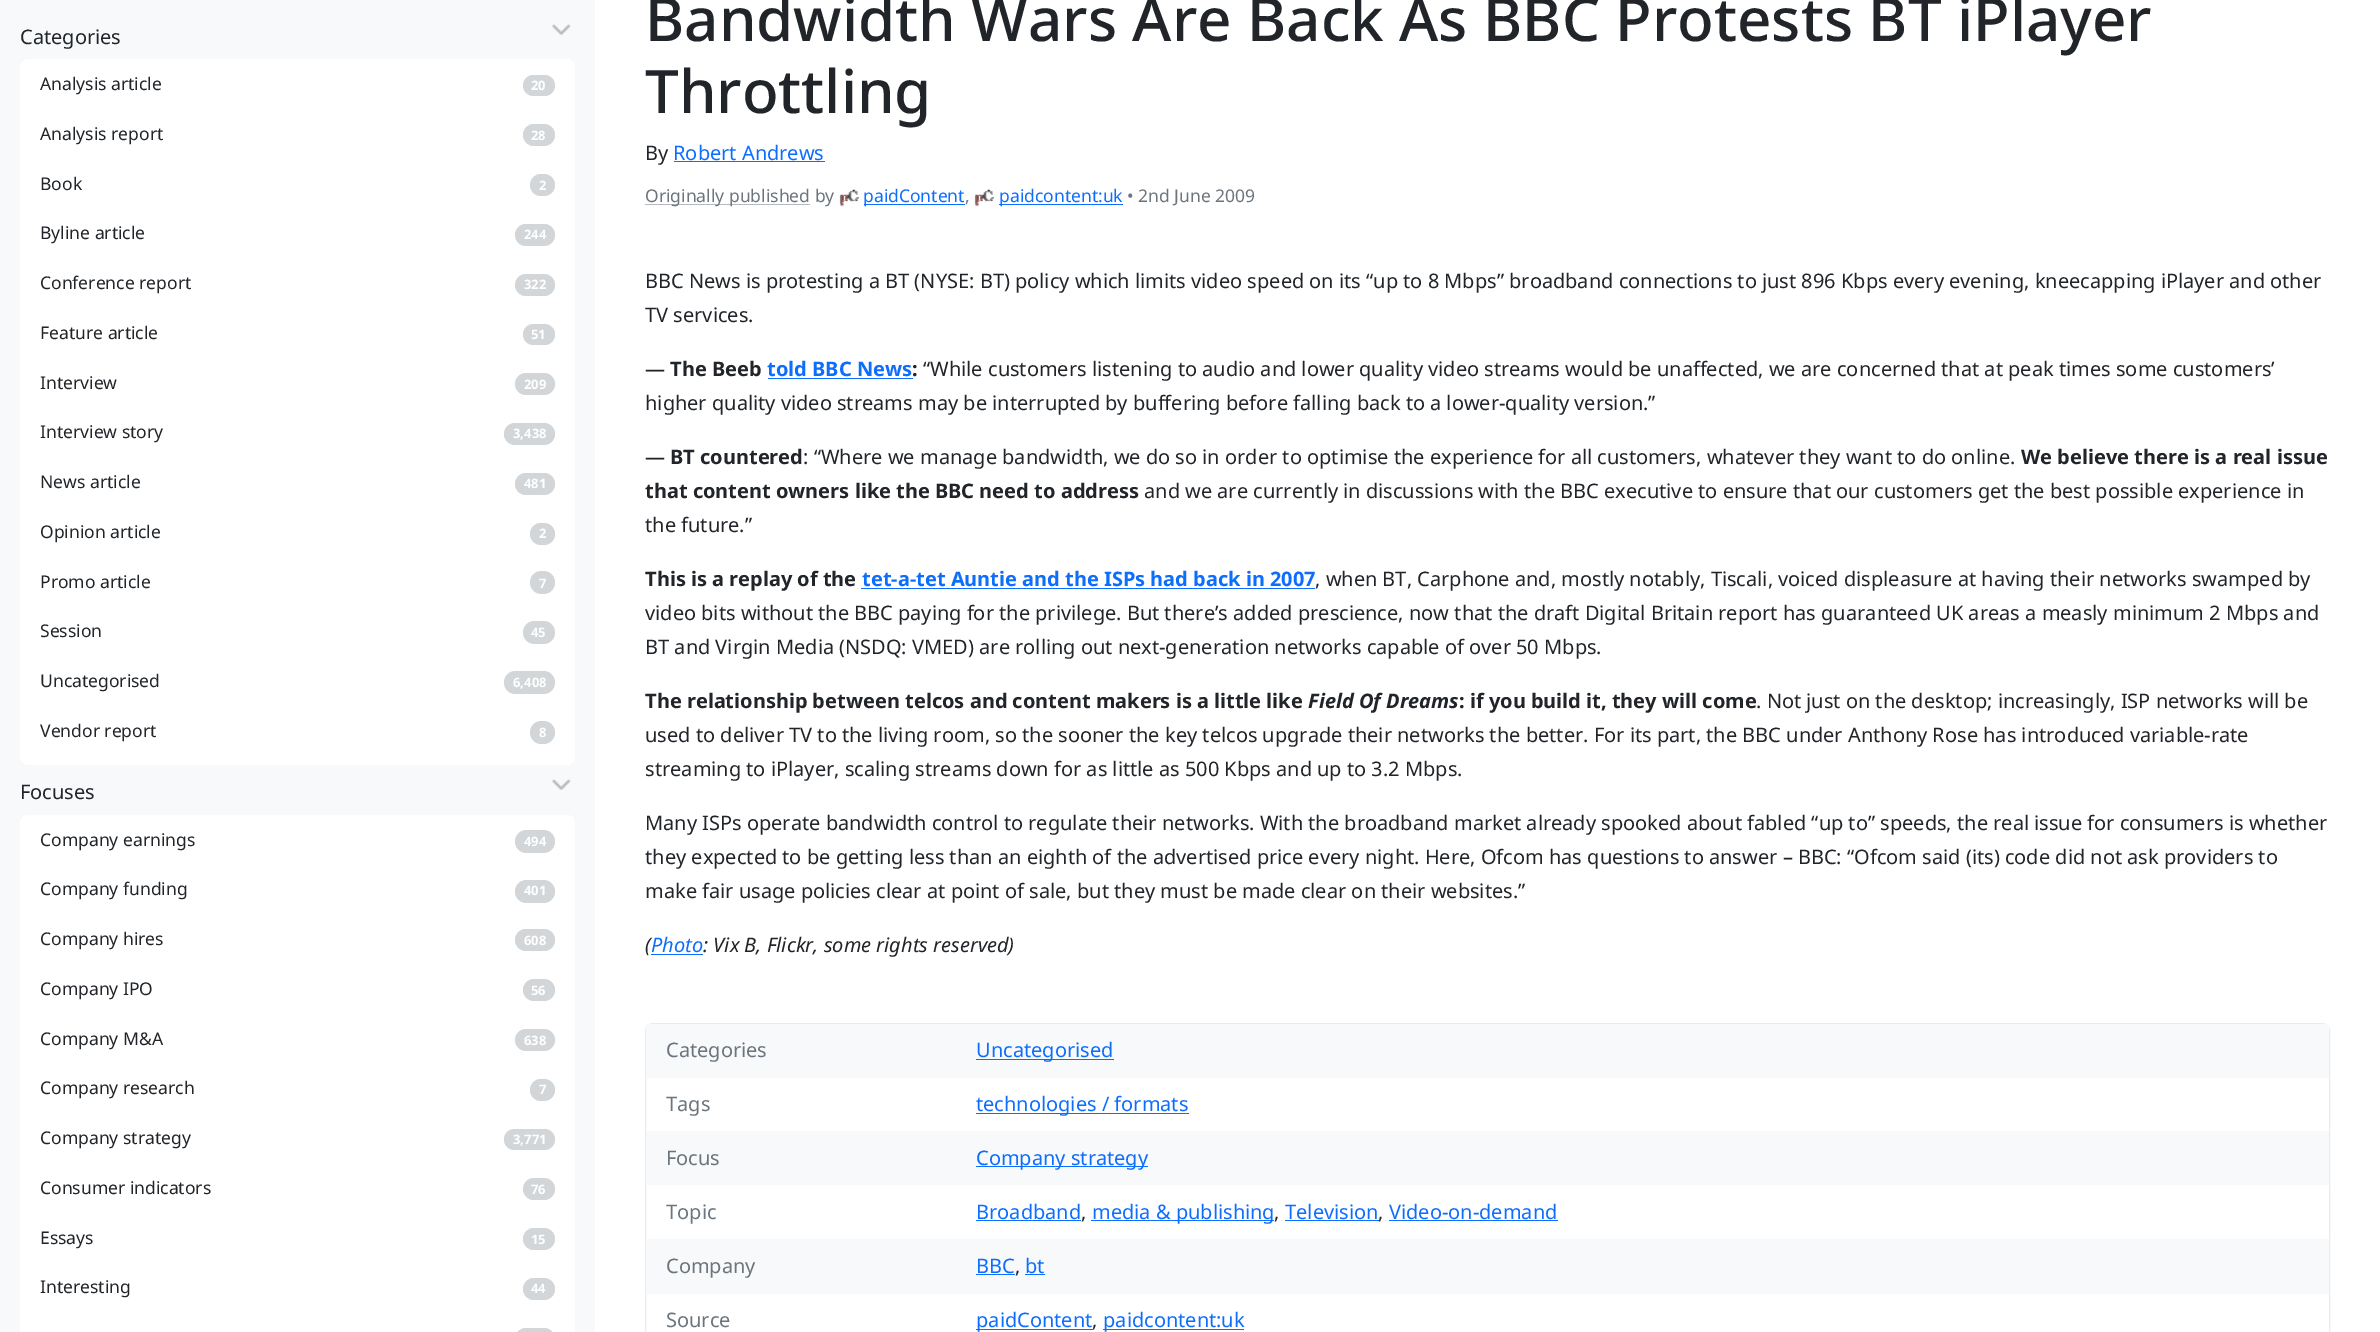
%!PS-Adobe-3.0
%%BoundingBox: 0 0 2380 1332
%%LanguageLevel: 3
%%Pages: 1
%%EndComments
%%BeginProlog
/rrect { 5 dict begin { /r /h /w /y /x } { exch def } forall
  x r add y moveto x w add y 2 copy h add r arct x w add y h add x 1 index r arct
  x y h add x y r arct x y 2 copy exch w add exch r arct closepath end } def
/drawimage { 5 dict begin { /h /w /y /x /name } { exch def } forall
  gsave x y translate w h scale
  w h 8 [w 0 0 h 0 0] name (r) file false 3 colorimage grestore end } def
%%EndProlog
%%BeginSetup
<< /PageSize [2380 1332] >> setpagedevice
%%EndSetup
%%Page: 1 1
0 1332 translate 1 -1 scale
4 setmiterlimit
1 setgray
0 0 2380 1332 rectfill
0.973 0.976 0.98 setrgbcolor
0 0 595 1332 rectfill
(images/1.raw) 552 24 19 11 drawimage
1 setgray
20 59 555 706 8 rrect fill
0.827 0.839 0.847 setrgbcolor
523 75 32 21 10.5 rrect fill
523 124 32 22 11 rrect fill
530 174 25 22 11 rrect fill
515 224 40 22 11 rrect fill
515 274 40 22 11 rrect fill
523 324 32 21 10.5 rrect fill
515 373 40 22 11 rrect fill
504 423 51 22 11 rrect fill
515 473 40 22 11 rrect fill
530 523 25 22 11 rrect fill
530 571 25 23 11.5 rrect fill
523 621 32 23 11.5 rrect fill
504 671 51 23 11.5 rrect fill
530 721 25 23 11.5 rrect fill
(images/1.raw) 552 779 19 11 drawimage
1 setgray
newpath 28 815 moveto 567 815 lineto 571.5 815 575 818.5 575 823 curveto 575 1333 lineto 20 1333 lineto 20 823 lineto 20 818.5 23.5 815 28 815 curveto closepath fill
0.827 0.839 0.847 setrgbcolor
515 830 40 23 11.5 rrect fill
515 880 40 23 11.5 rrect fill
515 929 40 22 11 rrect fill
523 979 32 22 11 rrect fill
515 1029 40 22 11 rrect fill
530 1079 25 22 11 rrect fill
504 1129 51 21 10.5 rrect fill
523 1178 32 22 11 rrect fill
523 1228 32 22 11 rrect fill
523 1278 32 22 11 rrect fill
newpath 526 1328 moveto 544 1328 lineto 550 1328 555 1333 555 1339 curveto 555 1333 lineto 515 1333 lineto 515 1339 lineto 515 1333 520 1328 526 1328 curveto closepath fill
0.051 0.431 0.992 setrgbcolor
674 161 151 1 rectfill
0.714 0.729 0.745 setrgbcolor
645 204 165 1 rectfill
(images/2.raw) 839 189 20 18 drawimage
0.051 0.431 0.992 setrgbcolor
864 204 101 1 rectfill
(images/2.raw) 974 189 20 18 drawimage
999 204 124 1 rectfill
768 378 145 1 rectfill
861 588 454 1 rectfill
0.914 0.925 0.937 setrgbcolor
645.5 1023.5 1684 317 7.5 rrect stroke
0.973 0.976 0.98 setrgbcolor
646 1024 1683 54 rectfill
0.051 0.431 0.992 setrgbcolor
976 1059 138 1 rectfill
976 1113 213 1 rectfill
0.973 0.976 0.98 setrgbcolor
646 1131 1683 54 rectfill
0.051 0.431 0.992 setrgbcolor
976 1166 172 1 rectfill
976 1220 105 1 rectfill
1091 1220 183 1 rectfill
1285 1220 94 1 rectfill
1389 1220 169 1 rectfill
0.973 0.976 0.98 setrgbcolor
646 1239 1683 55 rectfill
0.051 0.431 0.992 setrgbcolor
976 1274 39 1 rectfill
1025 1274 20 1 rectfill
976 1329 117 1 rectfill
1103 1329 141 1 rectfill
/NotoSans-Regular [20 0 0 -20 0 0] selectfont
0.129 0.145 0.161 setrgbcolor
20 44 moveto (Categories) show
/NotoSans-Regular [17.5 0 0 -17.5 0 0] selectfont
40 90 moveto (Analysis article) show
/NotoSans-Bold [13 0 0 -13 0 0] selectfont
1 setgray
531 90 moveto (20) show
/NotoSans-Regular [17.5 0 0 -17.5 0 0] selectfont
0.129 0.145 0.161 setrgbcolor
40 140 moveto (Analysis report) show
/NotoSans-Bold [13 0 0 -13 0 0] selectfont
1 setgray
531 140 moveto (28) show
/NotoSans-Regular [17.5 0 0 -17.5 0 0] selectfont
0.129 0.145 0.161 setrgbcolor
40 190 moveto (Book) show
/NotoSans-Bold [13 0 0 -13 0 0] selectfont
1 setgray
539 190 moveto (2) show
/NotoSans-Regular [17.5 0 0 -17.5 0 0] selectfont
0.129 0.145 0.161 setrgbcolor
40 239 moveto (Byline article) show
/NotoSans-Bold [13 0 0 -13 0 0] selectfont
1 setgray
524 239 moveto (244) show
/NotoSans-Regular [17.5 0 0 -17.5 0 0] selectfont
0.129 0.145 0.161 setrgbcolor
40 289 moveto (Conference report) show
/NotoSans-Bold [13 0 0 -13 0 0] selectfont
1 setgray
524 289 moveto (322) show
/NotoSans-Regular [17.5 0 0 -17.5 0 0] selectfont
0.129 0.145 0.161 setrgbcolor
40 339 moveto (Feature article) show
/NotoSans-Bold [13 0 0 -13 0 0] selectfont
1 setgray
531 339 moveto (51) show
/NotoSans-Regular [17.5 0 0 -17.5 0 0] selectfont
0.129 0.145 0.161 setrgbcolor
40 389 moveto (Interview) show
/NotoSans-Bold [13 0 0 -13 0 0] selectfont
1 setgray
524 389 moveto (209) show
/NotoSans-Regular [17.5 0 0 -17.5 0 0] selectfont
0.129 0.145 0.161 setrgbcolor
40 438 moveto (Interview story) show
/NotoSans-Bold [13 0 0 -13 0 0] selectfont
1 setgray
513 438 moveto (3,438) show
/NotoSans-Regular [17.5 0 0 -17.5 0 0] selectfont
0.129 0.145 0.161 setrgbcolor
40 488 moveto (News article) show
/NotoSans-Bold [13 0 0 -13 0 0] selectfont
1 setgray
524 488 moveto (481) show
/NotoSans-Regular [17.5 0 0 -17.5 0 0] selectfont
0.129 0.145 0.161 setrgbcolor
40 538 moveto (Opinion article) show
/NotoSans-Bold [13 0 0 -13 0 0] selectfont
1 setgray
539 538 moveto (2) show
/NotoSans-Regular [17.5 0 0 -17.5 0 0] selectfont
0.129 0.145 0.161 setrgbcolor
40 588 moveto (Promo article) show
/NotoSans-Bold [13 0 0 -13 0 0] selectfont
1 setgray
539 588 moveto (7) show
/NotoSans-Regular [17.5 0 0 -17.5 0 0] selectfont
0.129 0.145 0.161 setrgbcolor
40 637 moveto (Session) show
/NotoSans-Bold [13 0 0 -13 0 0] selectfont
1 setgray
531 637 moveto (45) show
/NotoSans-Regular [17.5 0 0 -17.5 0 0] selectfont
0.129 0.145 0.161 setrgbcolor
40 687 moveto (Uncategorised) show
/NotoSans-Bold [13 0 0 -13 0 0] selectfont
1 setgray
513 687 moveto (6,408) show
/NotoSans-Regular [17.5 0 0 -17.5 0 0] selectfont
0.129 0.145 0.161 setrgbcolor
40 737 moveto (Vendor report) show
/NotoSans-Bold [13 0 0 -13 0 0] selectfont
1 setgray
539 737 moveto (8) show
/NotoSans-Regular [20 0 0 -20 0 0] selectfont
0.129 0.145 0.161 setrgbcolor
20 799 moveto (Focuses) show
/NotoSans-Regular [17.5 0 0 -17.5 0 0] selectfont
40 846 moveto (Company earnings) show
/NotoSans-Bold [13 0 0 -13 0 0] selectfont
1 setgray
524 846 moveto (494) show
/NotoSans-Regular [17.5 0 0 -17.5 0 0] selectfont
0.129 0.145 0.161 setrgbcolor
40 895 moveto (Company funding) show
/NotoSans-Bold [13 0 0 -13 0 0] selectfont
1 setgray
524 895 moveto (401) show
/NotoSans-Regular [17.5 0 0 -17.5 0 0] selectfont
0.129 0.145 0.161 setrgbcolor
40 945 moveto (Company hires) show
/NotoSans-Bold [13 0 0 -13 0 0] selectfont
1 setgray
524 945 moveto (608) show
/NotoSans-Regular [17.5 0 0 -17.5 0 0] selectfont
0.129 0.145 0.161 setrgbcolor
40 995 moveto (Company IPO) show
/NotoSans-Bold [13 0 0 -13 0 0] selectfont
1 setgray
531 995 moveto (56) show
/NotoSans-Regular [17.5 0 0 -17.5 0 0] selectfont
0.129 0.145 0.161 setrgbcolor
40 1045 moveto (Company M&A) show
/NotoSans-Bold [13 0 0 -13 0 0] selectfont
1 setgray
524 1045 moveto (638) show
/NotoSans-Regular [17.5 0 0 -17.5 0 0] selectfont
0.129 0.145 0.161 setrgbcolor
40 1094 moveto (Company research) show
/NotoSans-Bold [13 0 0 -13 0 0] selectfont
1 setgray
539 1094 moveto (7) show
/NotoSans-Regular [17.5 0 0 -17.5 0 0] selectfont
0.129 0.145 0.161 setrgbcolor
40 1144 moveto (Company strategy) show
/NotoSans-Bold [13 0 0 -13 0 0] selectfont
1 setgray
513 1144 moveto (3,771) show
/NotoSans-Regular [17.5 0 0 -17.5 0 0] selectfont
0.129 0.145 0.161 setrgbcolor
40 1194 moveto (Consumer indicators) show
/NotoSans-Bold [13 0 0 -13 0 0] selectfont
1 setgray
531 1194 moveto (76) show
/NotoSans-Regular [17.5 0 0 -17.5 0 0] selectfont
0.129 0.145 0.161 setrgbcolor
40 1244 moveto (Essays) show
/NotoSans-Bold [13 0 0 -13 0 0] selectfont
1 setgray
531 1244 moveto (15) show
/NotoSans-Regular [17.5 0 0 -17.5 0 0] selectfont
0.129 0.145 0.161 setrgbcolor
40 1293 moveto (Interesting) show
/NotoSans-Bold [13 0 0 -13 0 0] selectfont
1 setgray
531 1293 moveto (44) show
/NotoSans-Medium [60 0 0 -60 0 0] selectfont
0.129 0.145 0.161 setrgbcolor
645 41 moveto (Bandwidth Wars Are Back As BBC Protests BT iPlayer) show
645 113 moveto (Throttling) show
/NotoSans-Regular [20 0 0 -20 0 0] selectfont
645 160 moveto (By) show
0.051 0.431 0.992 setrgbcolor
673 160 moveto (Robert Andrews) show
/NotoSans-Regular [17.5 0 0 -17.5 0 0] selectfont
0.424 0.459 0.49 setrgbcolor
645 202 moveto (Originally published by) show
0.051 0.431 0.992 setrgbcolor
863 202 moveto (paidContent) show
0.424 0.459 0.49 setrgbcolor
965 202 moveto (,) show
0.051 0.431 0.992 setrgbcolor
999 202 moveto (paidcontent:uk) show
0.424 0.459 0.49 setrgbcolor
1127 202 moveto (• 2nd June 2009) show
/NotoSans-Regular [20 0 0 -20 0 0] selectfont
0.129 0.145 0.161 setrgbcolor
645 288 moveto (BBC News is protesting a BT \(NYSE: BT\) policy which limits video speed on its “up to 8 Mbps” broadband connections to just 896 Kbps every evening, kneecapping iPlayer and other) show
645 322 moveto (TV services.) show
645 376 moveto (—) show
/NotoSans-Bold [20 0 0 -20 0 0] selectfont
670 376 moveto (The Beeb) show
0.051 0.431 0.992 setrgbcolor
767 376 moveto (told BBC News) show
0.129 0.145 0.161 setrgbcolor
912 376 moveto (:) show
/NotoSans-Regular [20 0 0 -20 0 0] selectfont
923 376 moveto (“While customers listening to audio and lower quality video streams would be unaffected, we are concerned that at peak times some customers’) show
645 410 moveto (higher quality video streams may be interrupted by buffering before falling back to a lower-quality version.”) show
645 464 moveto (—) show
/NotoSans-Bold [20 0 0 -20 0 0] selectfont
670 464 moveto (BT countered) show
/NotoSans-Regular [20 0 0 -20 0 0] selectfont
803 464 moveto (: “Where we manage bandwidth, we do so in order to optimise the experience for all customers, whatever they want to do online.) show
/NotoSans-Bold [20 0 0 -20 0 0] selectfont
2021 464 moveto (We believe there is a real issue) show
645 498 moveto (that content owners like the BBC need to address) show
/NotoSans-Regular [20 0 0 -20 0 0] selectfont
1144 498 moveto (and we are currently in discussions with the BBC executive to ensure that our customers get the best possible experience in) show
645 532 moveto (the future.”) show
/NotoSans-Bold [20 0 0 -20 0 0] selectfont
645 586 moveto (This is a replay of the) show
0.051 0.431 0.992 setrgbcolor
862 586 moveto (tet-a-tet Auntie and the ISPs had back in 2007) show
/NotoSans-Regular [20 0 0 -20 0 0] selectfont
0.129 0.145 0.161 setrgbcolor
1315 586 moveto (, when BT, Carphone and, mostly notably, Tiscali, voiced displeasure at having their networks swamped by) show
645 620 moveto (video bits without the BBC paying for the privilege. But there’s added prescience, now that the draft Digital Britain report has guaranteed UK areas a measly minimum 2 Mbps and) show
645 654 moveto (BT and Virgin Media \(NSDQ: VMED\) are rolling out next-generation networks capable of over 50 Mbps.) show
/NotoSans-Bold [20 0 0 -20 0 0] selectfont
645 708 moveto (The relationship between telcos and content makers is a little like) show
/NotoSans-BoldItalic [20 0 0 -20 0 0] selectfont
1308 708 moveto (Field Of Dreams) show
/NotoSans-Bold [20 0 0 -20 0 0] selectfont
1459 708 moveto (: if you build it, they will come) show
/NotoSans-Regular [20 0 0 -20 0 0] selectfont
1756 708 moveto (. Not just on the desktop; increasingly, ISP networks will be) show
645 742 moveto (used to deliver TV to the living room, so the sooner the key telcos upgrade their networks the better. For its part, the BBC under Anthony Rose has introduced variable-rate) show
645 776 moveto (streaming to iPlayer, scaling streams down for as little as 500 Kbps and up to 3.2 Mbps.) show
645 830 moveto (Many ISPs operate bandwidth control to regulate their networks. With the broadband market already spooked about fabled “up to” speeds, the real issue for consumers is whether) show
645 864 moveto (they expected to be getting less than an eighth of the advertised price every night. Here, Ofcom has questions to answer – BBC: “Ofcom said \(its\) code did not ask providers to) show
645 898 moveto (make fair usage policies clear at point of sale, but they must be made clear on their websites.”) show
/NotoSans-Italic [20 0 0 -20 0 0] selectfont
645 952 moveto (\() show
0.051 0.431 0.992 setrgbcolor
651 954 52 1 rectfill
651 952 moveto (Photo) show
0.129 0.145 0.161 setrgbcolor
703 952 moveto (: Vix B, Flickr, some rights reserved\)) show
/NotoSans-Regular [20 0 0 -20 0 0] selectfont
0.424 0.459 0.49 setrgbcolor
666 1057 moveto (Categories) show
0.051 0.431 0.992 setrgbcolor
976 1057 moveto (Uncategorised) show
0.424 0.459 0.49 setrgbcolor
666 1111 moveto (Tags) show
0.051 0.431 0.992 setrgbcolor
976 1111 moveto (technologies / formats) show
0.424 0.459 0.49 setrgbcolor
666 1165 moveto (Focus) show
0.051 0.431 0.992 setrgbcolor
976 1165 moveto (Company strategy) show
0.424 0.459 0.49 setrgbcolor
666 1219 moveto (Topic) show
0.051 0.431 0.992 setrgbcolor
976 1219 moveto (Broadband) show
0.129 0.145 0.161 setrgbcolor
1081 1219 moveto (,) show
0.051 0.431 0.992 setrgbcolor
1092 1219 moveto (media & publishing) show
0.129 0.145 0.161 setrgbcolor
1274 1219 moveto (,) show
0.051 0.431 0.992 setrgbcolor
1285 1219 moveto (Television) show
0.129 0.145 0.161 setrgbcolor
1378 1219 moveto (,) show
0.051 0.431 0.992 setrgbcolor
1389 1219 moveto (Video-on-demand) show
0.424 0.459 0.49 setrgbcolor
666 1273 moveto (Company) show
0.051 0.431 0.992 setrgbcolor
976 1273 moveto (BBC) show
0.129 0.145 0.161 setrgbcolor
1015 1273 moveto (,) show
0.051 0.431 0.992 setrgbcolor
1025 1273 moveto (bt) show
0.424 0.459 0.49 setrgbcolor
666 1327 moveto (Source) show
0.051 0.431 0.992 setrgbcolor
976 1327 moveto (paidContent) show
0.129 0.145 0.161 setrgbcolor
1092 1327 moveto (,) show
0.051 0.431 0.992 setrgbcolor
1103 1327 moveto (paidcontent:uk) show
showpage
%%EOF
